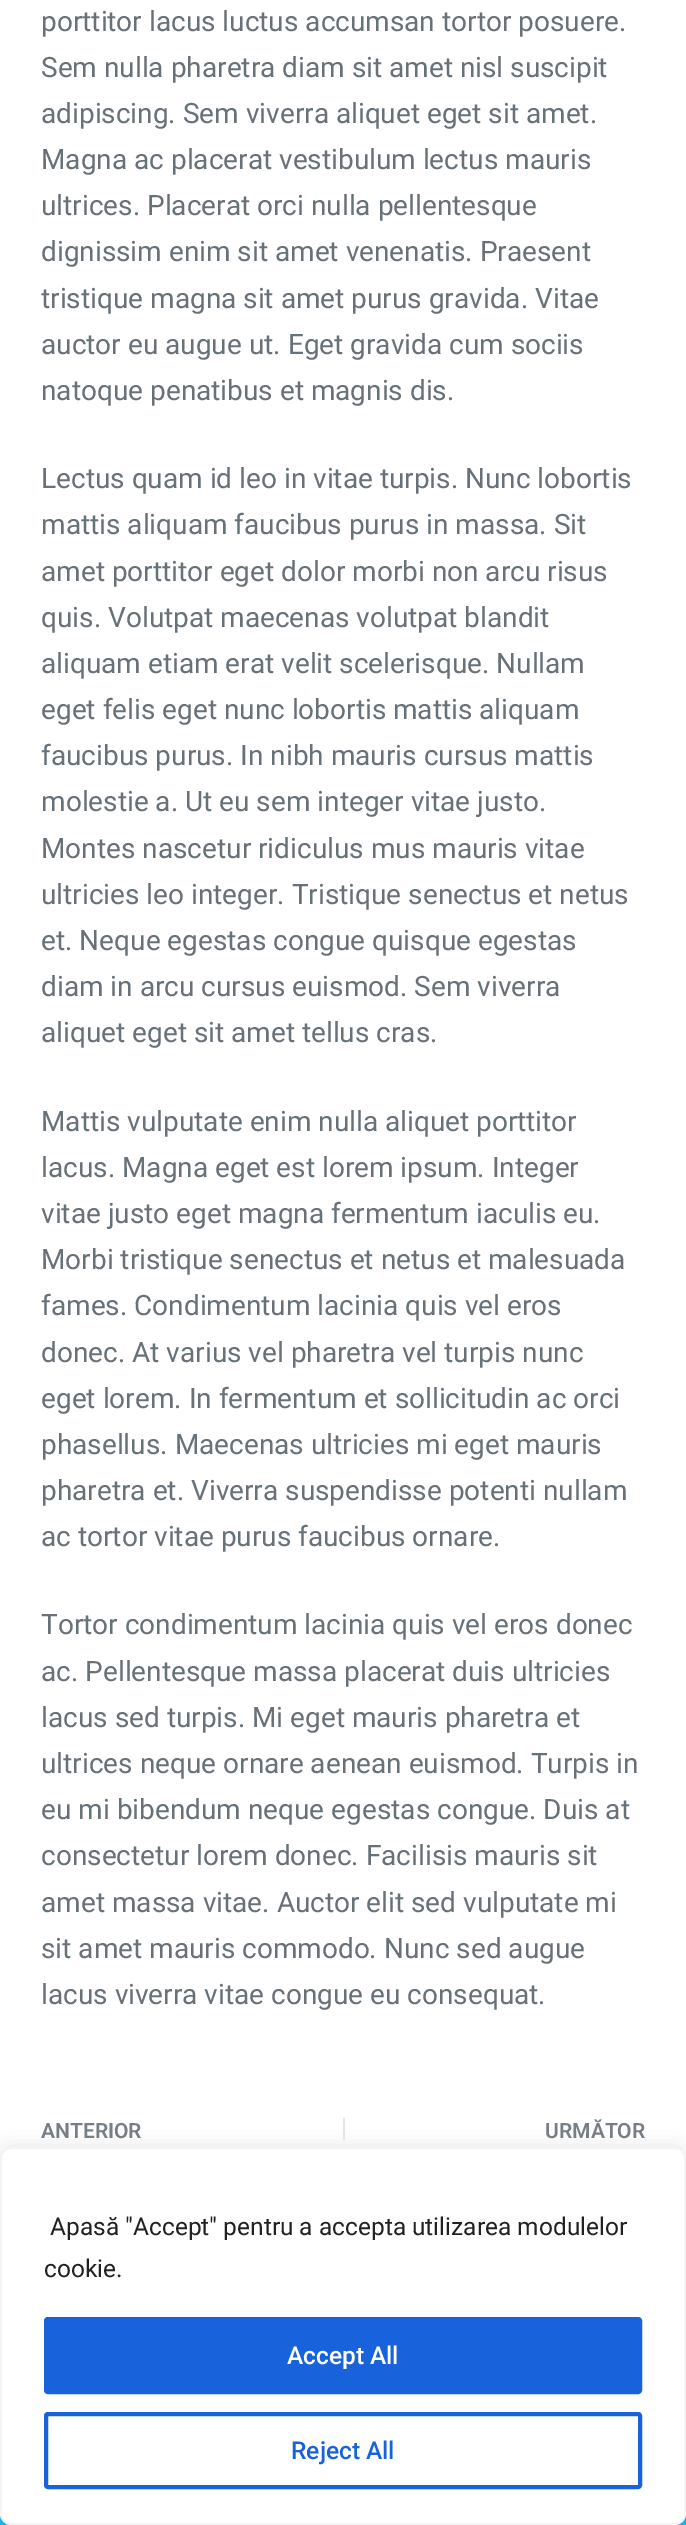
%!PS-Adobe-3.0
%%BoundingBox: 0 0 686 2525
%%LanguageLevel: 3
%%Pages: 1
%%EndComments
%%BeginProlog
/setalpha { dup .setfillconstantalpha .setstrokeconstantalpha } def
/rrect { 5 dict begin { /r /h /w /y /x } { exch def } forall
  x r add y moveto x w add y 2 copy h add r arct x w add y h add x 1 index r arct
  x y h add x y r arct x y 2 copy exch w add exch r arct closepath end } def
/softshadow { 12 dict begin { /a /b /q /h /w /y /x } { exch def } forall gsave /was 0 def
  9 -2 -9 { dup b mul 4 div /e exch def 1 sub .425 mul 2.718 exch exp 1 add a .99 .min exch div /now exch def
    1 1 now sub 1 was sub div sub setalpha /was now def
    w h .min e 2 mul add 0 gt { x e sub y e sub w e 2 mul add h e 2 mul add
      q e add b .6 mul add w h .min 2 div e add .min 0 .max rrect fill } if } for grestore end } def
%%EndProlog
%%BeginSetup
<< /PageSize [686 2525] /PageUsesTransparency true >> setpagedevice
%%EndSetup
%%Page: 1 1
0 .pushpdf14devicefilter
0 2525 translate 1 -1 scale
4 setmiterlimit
1 setgray
0 0 686 2525 rectfill
0.886 0.906 0.929 setrgbcolor
343 2118 2 22 rectfill
0.035 0.706 0.949 setrgbcolor
0 2514 11 11 rectfill
675 2514 11 11 rectfill
0.675 0.671 0.671 setrgbcolor
0 2146 686 378 11 9 0.3 softshadow
1 setgray
1 2148 684 376 10 rrect gsave fill grestore
0.957 setgray
2 setlinewidth
stroke
0.094 0.388 0.863 setrgbcolor
46 2319 594 73 2 rrect gsave fill grestore
4 setlinewidth
stroke
46 2414 594 73 2 rrect stroke
/Roboto-Regular [28 0 0 -28 0 0] selectfont
0.404 0.443 0.471 setrgbcolor
41 31 moveto (porttitor lacus luctus accumsan tortor posuere.) show
41 77 moveto (Sem nulla pharetra diam sit amet nisl suscipit) show
41 123 moveto (adipiscing. Sem viverra aliquet eget sit amet.) show
41 169 moveto (Magna ac placerat vestibulum lectus mauris) show
41 215 moveto (ultrices. Placerat orci nulla pellentesque) show
41 261 moveto (dignissim enim sit amet venenatis. Praesent) show
41 308 moveto (tristique magna sit amet purus gravida. Vitae) show
41 354 moveto (auctor eu augue ut. Eget gravida cum sociis) show
41 400 moveto (natoque penatibus et magnis dis.) show
41 488 moveto (Lectus quam id leo in vitae turpis. Nunc lobortis) show
41 534 moveto (mattis aliquam faucibus purus in massa. Sit) show
41 581 moveto (amet porttitor eget dolor morbi non arcu risus) show
41 627 moveto (quis. Volutpat maecenas volutpat blandit) show
41 673 moveto (aliquam etiam erat velit scelerisque. Nullam) show
41 719 moveto (eget felis eget nunc lobortis mattis aliquam) show
41 765 moveto (faucibus purus. In nibh mauris cursus mattis) show
41 811 moveto (molestie a. Ut eu sem integer vitae justo.) show
41 858 moveto (Montes nascetur ridiculus mus mauris vitae) show
41 904 moveto (ultricies leo integer. Tristique senectus et netus) show
41 950 moveto (et. Neque egestas congue quisque egestas) show
41 996 moveto (diam in arcu cursus euismod. Sem viverra) show
41 1042 moveto (aliquet eget sit amet tellus cras.) show
41 1131 moveto (Mattis vulputate enim nulla aliquet porttitor) show
41 1177 moveto (lacus. Magna eget est lorem ipsum. Integer) show
41 1223 moveto (vitae justo eget magna fermentum iaculis eu.) show
41 1269 moveto (Morbi tristique senectus et netus et malesuada) show
41 1315 moveto (fames. Condimentum lacinia quis vel eros) show
41 1362 moveto (donec. At varius vel pharetra vel turpis nunc) show
41 1408 moveto (eget lorem. In fermentum et sollicitudin ac orci) show
41 1454 moveto (phasellus. Maecenas ultricies mi eget mauris) show
41 1500 moveto (pharetra et. Viverra suspendisse potenti nullam) show
41 1546 moveto (ac tortor vitae purus faucibus ornare.) show
41 1634 moveto (Tortor condimentum lacinia quis vel eros donec) show
41 1681 moveto (ac. Pellentesque massa placerat duis ultricies) show
41 1727 moveto (lacus sed turpis. Mi eget mauris pharetra et) show
41 1773 moveto (ultrices neque ornare aenean euismod. Turpis in) show
41 1819 moveto (eu mi bibendum neque egestas congue. Duis at) show
41 1865 moveto (consectetur lorem donec. Facilisis mauris sit) show
41 1912 moveto (amet massa vitae. Auctor elit sed vulputate mi) show
41 1958 moveto (sit amet mauris commodo. Nunc sed augue) show
41 2004 moveto (lacus viverra vitae congue eu consequat.) show
/Roboto-SemiBold [21 0 0 -21 0 0] selectfont
0.463 0.498 0.525 setrgbcolor
41 2138 moveto (ANTERIOR) show
545 2138 moveto (URMĂTOR) show
/Roboto-Regular [24.5 0 0 -24.5 0 0] selectfont
0.129 setgray
50 2235 moveto (Apasă "Accept" pentru a accepta utilizarea modulelor) show
44 2277 moveto (cookie.) show
/Roboto-Medium [24.5 0 0 -24.5 0 0] selectfont
1 setgray
287 2364 moveto (Accept All) show
0.094 0.388 0.863 setrgbcolor
291 2459 moveto (Reject All) show
.poppdf14devicefilter showpage
%%EOF
